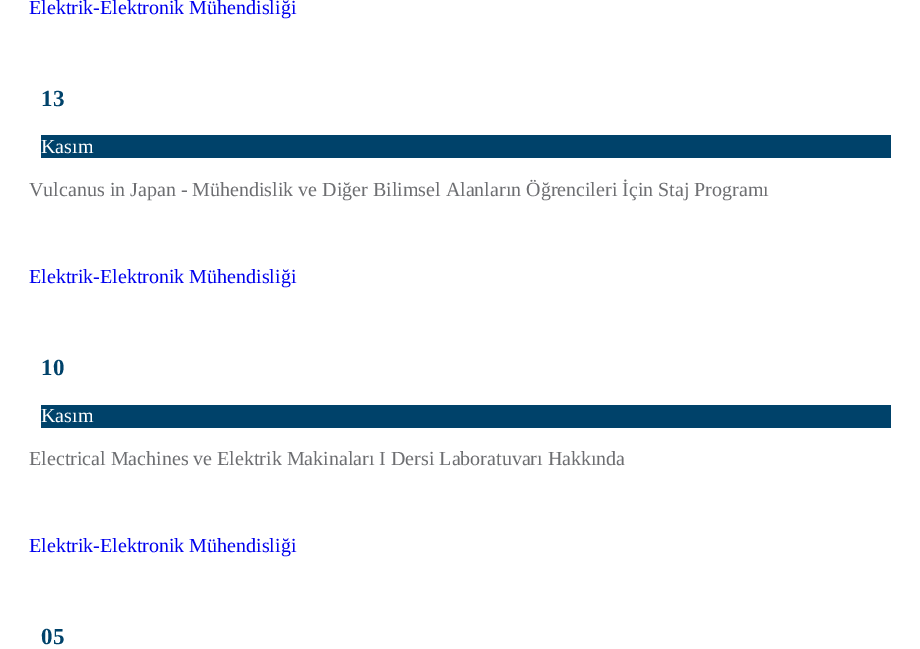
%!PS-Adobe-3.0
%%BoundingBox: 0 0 920 649
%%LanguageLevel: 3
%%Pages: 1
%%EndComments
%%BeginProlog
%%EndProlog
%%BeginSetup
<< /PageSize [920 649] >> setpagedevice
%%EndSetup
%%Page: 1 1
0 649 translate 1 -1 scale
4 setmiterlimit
1 setgray
0 0 920 649 rectfill
0 0.259 0.416 setrgbcolor
41 135 850 23 rectfill
41 405 850 23 rectfill
/LiberationSerif-Regular [20 0 0 -20 0 0] selectfont
0 0 0.933 setrgbcolor
29 14 moveto (Elektrik-Elektronik Mühendisliği) show
/LiberationSerif-Bold [23 0 0 -23 0 0] selectfont
0 0.259 0.416 setrgbcolor
41 106 moveto (13) show
/LiberationSerif-Regular [20 0 0 -20 0 0] selectfont
1 setgray
41 153 moveto (Kasım) show
0.427 0.431 0.443 setrgbcolor
29 196 moveto (Vulcanus in Japan - Mühendislik ve Diğer Bilimsel Alanların Öğrencileri İçin Staj Programı) show
0 0 0.933 setrgbcolor
29 283 moveto (Elektrik-Elektronik Mühendisliği) show
/LiberationSerif-Bold [23 0 0 -23 0 0] selectfont
0 0.259 0.416 setrgbcolor
41 375 moveto (10) show
/LiberationSerif-Regular [20 0 0 -20 0 0] selectfont
1 setgray
41 422 moveto (Kasım) show
0.427 0.431 0.443 setrgbcolor
29 465 moveto (Electrical Machines ve Elektrik Makinaları I Dersi Laboratuvarı Hakkında) show
0 0 0.933 setrgbcolor
29 552 moveto (Elektrik-Elektronik Mühendisliği) show
/LiberationSerif-Bold [23 0 0 -23 0 0] selectfont
0 0.259 0.416 setrgbcolor
41 644 moveto (05) show
showpage
%%EOF
